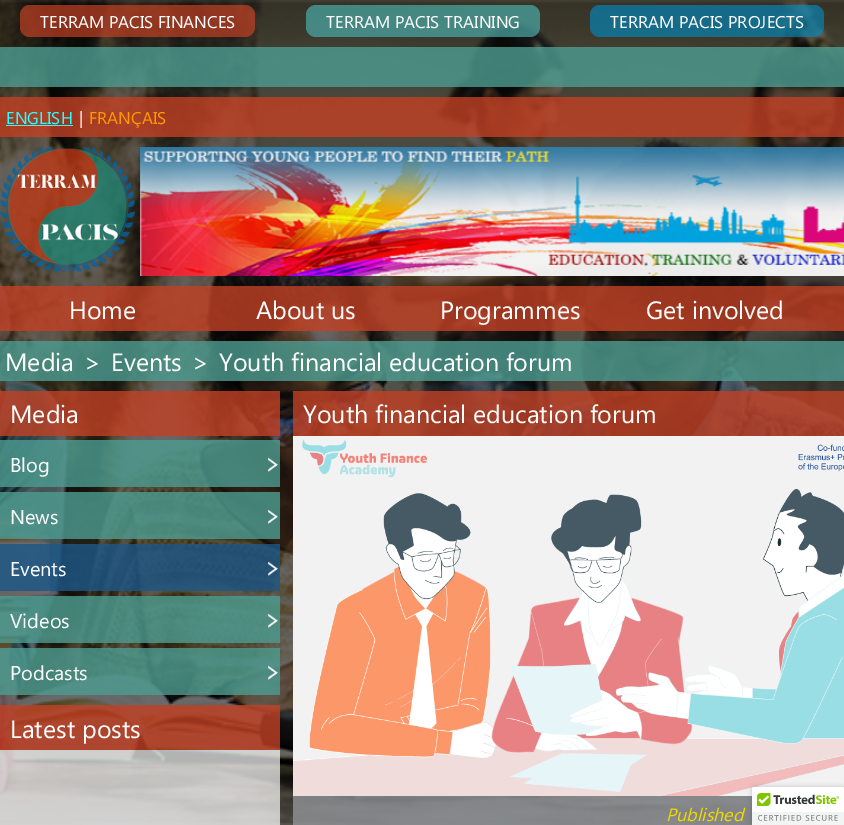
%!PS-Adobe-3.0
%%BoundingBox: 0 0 844 825
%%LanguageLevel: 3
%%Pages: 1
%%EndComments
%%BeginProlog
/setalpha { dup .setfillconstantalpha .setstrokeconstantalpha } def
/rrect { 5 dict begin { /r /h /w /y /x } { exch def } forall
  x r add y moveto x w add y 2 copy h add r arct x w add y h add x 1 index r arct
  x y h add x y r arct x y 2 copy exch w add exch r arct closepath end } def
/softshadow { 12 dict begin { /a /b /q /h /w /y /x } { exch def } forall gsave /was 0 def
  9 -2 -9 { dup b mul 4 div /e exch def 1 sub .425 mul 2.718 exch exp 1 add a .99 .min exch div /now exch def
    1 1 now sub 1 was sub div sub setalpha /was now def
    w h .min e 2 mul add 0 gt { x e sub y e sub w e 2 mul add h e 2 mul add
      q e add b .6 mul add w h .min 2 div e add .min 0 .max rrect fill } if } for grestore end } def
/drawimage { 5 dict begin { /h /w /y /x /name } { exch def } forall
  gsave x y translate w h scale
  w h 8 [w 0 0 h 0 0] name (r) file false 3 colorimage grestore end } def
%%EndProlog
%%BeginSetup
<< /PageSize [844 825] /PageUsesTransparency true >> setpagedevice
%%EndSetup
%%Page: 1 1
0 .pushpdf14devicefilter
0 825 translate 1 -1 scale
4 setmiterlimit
1 setgray
0 0 844 825 rectfill
(images/1.raw) 0 0 844 825 drawimage
0.7 setalpha
0.757 0.251 0.141 setrgbcolor
20 5 235 32 10 rrect fill
0.72 setalpha
0.29 0.655 0.643 setrgbcolor
306 5 234 32 10 rrect fill
0.63 setalpha
0 0.541 0.753 setrgbcolor
590 5 234 32 10 rrect fill
0.8 setalpha
0.298 0.612 0.569 setrgbcolor
0 47 844 40 rectfill
0.757 0.251 0.141 setrgbcolor
0 97 844 40 rectfill
1 setalpha
0.161 1 1 setrgbcolor
6 125 67 1 rectfill
(images/2.raw) 0 147 135 125 drawimage
(images/3.raw) 140 147 704 129 drawimage
0.8 setalpha
0.757 0.251 0.141 setrgbcolor
0 286 844 45 rectfill
0.298 0.612 0.569 setrgbcolor
0 341 844 40 rectfill
0.757 0.251 0.141 setrgbcolor
0 391 280 45 rectfill
0.298 0.612 0.569 setrgbcolor
0 440 280 47 rectfill
1 setalpha
(images/4.raw) 268 457 10 15 drawimage
0.8 setalpha
0 492 280 47 rectfill
1 setalpha
(images/5.raw) 268 509 10 15 drawimage
0.8 setalpha
0.11 0.341 0.533 setrgbcolor
0 544 280 47 rectfill
1 setalpha
(images/6.raw) 268 561 10 15 drawimage
0.8 setalpha
0.298 0.612 0.569 setrgbcolor
0 596 280 47 rectfill
1 setalpha
(images/7.raw) 268 613 10 15 drawimage
0.8 setalpha
0 648 280 47 rectfill
1 setalpha
(images/8.raw) 268 665 10 15 drawimage
0.8 setalpha
0.757 0.251 0.141 setrgbcolor
0 705 280 45 rectfill
0.7 setalpha
1 setgray
0 750 280 75 rectfill
0.8 setalpha
0.757 0.251 0.141 setrgbcolor
293 391 551 45 rectfill
0.565 0.576 0.592 setrgbcolor
293 796 459 29 rectfill
1 setalpha
(images/9.raw) 293 436 551 360 drawimage
0 setgray
752 787 92 38 2 2.5 0.2 softshadow
1 setgray
newpath 754 787 moveto 844 787 lineto 844 825 lineto 752 825 lineto 752 789 lineto 752 788 753 787 754 787 curveto closepath fill
(images/10.raw) 752 787 92 38 drawimage
/SegoeUI-Regular [17 0 0 -17 0 0] selectfont
40 28 moveto (TERRAM PACIS FINANCES) show
326 28 moveto (TERRAM PACIS TRAINING) show
610 28 moveto (TERRAM PACIS PROJECTS) show
0.161 1 1 setrgbcolor
6 124 moveto (ENGLISH) show
1 setgray
79 124 moveto (|) show
1 0.6 0 setrgbcolor
89 124 moveto (FRANÇAIS) show
/SegoeUI-Regular [25 0 0 -25 0 0] selectfont
1 setgray
69 319 moveto (Home) show
256 319 moveto (About us) show
440 319 moveto (Programmes) show
646 319 moveto (Get involved) show
5 371 moveto (Media) show
84 371 moveto (>) show
111 371 moveto (Events) show
192 371 moveto (>) show
219 371 moveto (Youth financial education forum) show
10 423 moveto (Media) show
/SegoeUI-Regular [20 0 0 -20 0 0] selectfont
10 472 moveto (Blog) show
10 524 moveto (News) show
10 576 moveto (Events) show
10 628 moveto (Videos) show
10 680 moveto (Podcasts) show
/SegoeUI-Regular [25 0 0 -25 0 0] selectfont
10 738 moveto (Latest posts) show
303 423 moveto (Youth financial education forum) show
/SegoeUI-Italic [18 0 0 -18 0 0] selectfont
0.937 0.843 0 setrgbcolor
666 821 moveto (Published) show
.poppdf14devicefilter showpage
%%EOF
